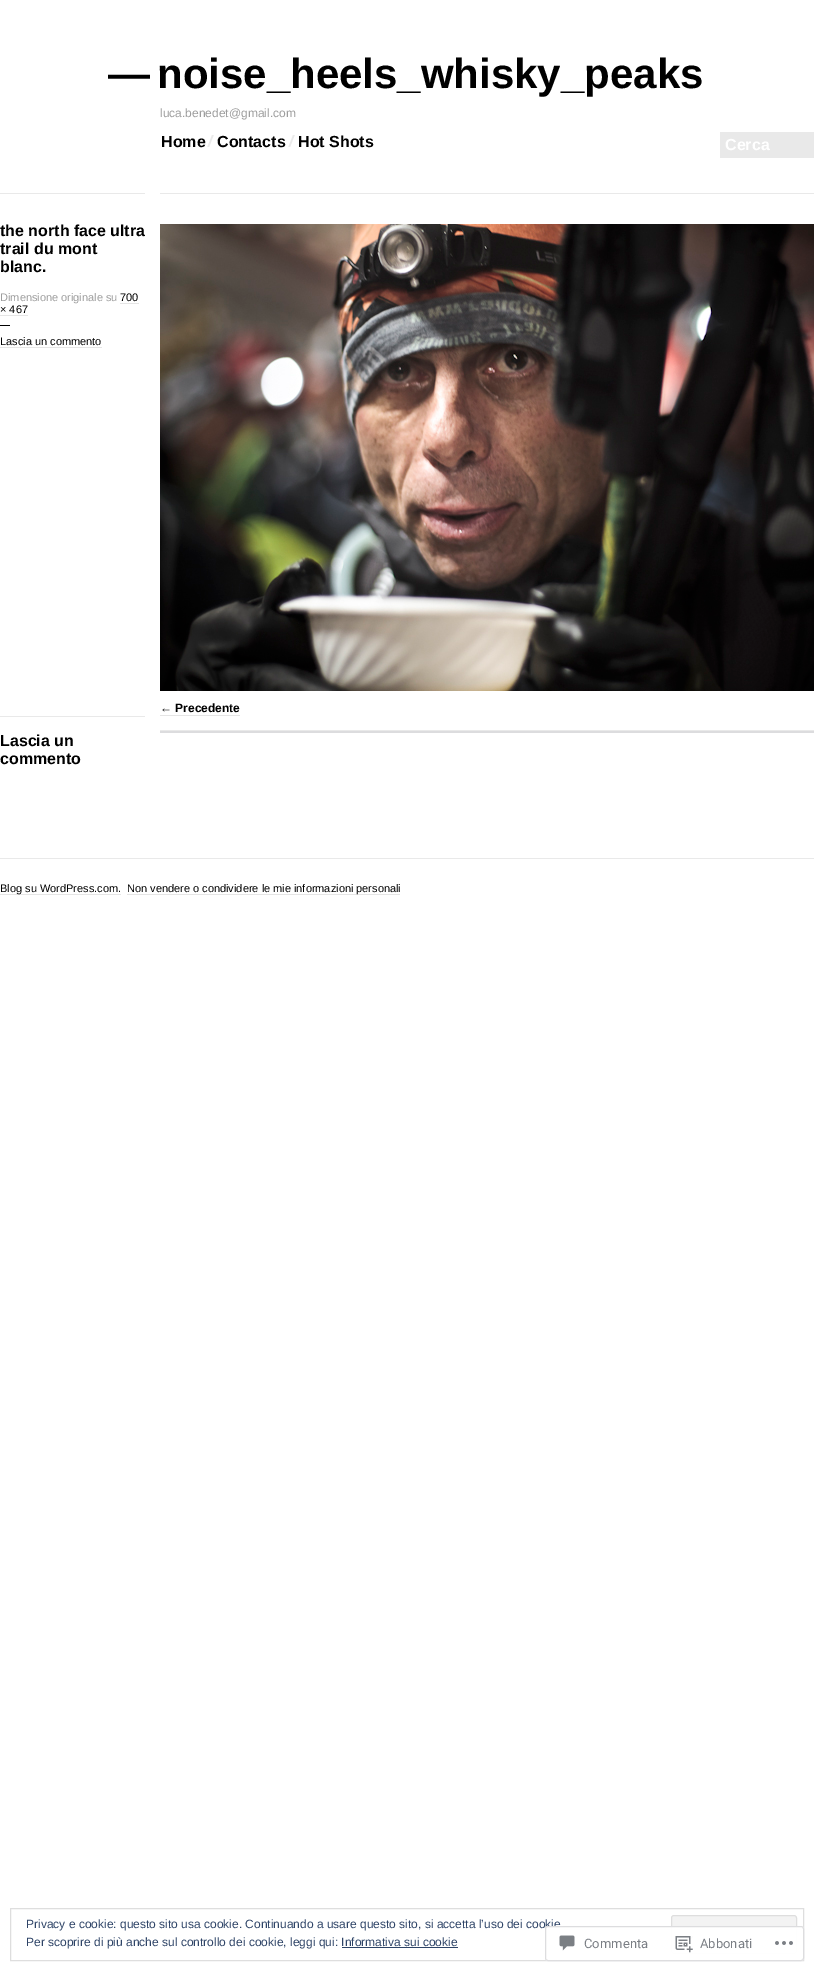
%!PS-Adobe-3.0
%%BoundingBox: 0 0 814 1971
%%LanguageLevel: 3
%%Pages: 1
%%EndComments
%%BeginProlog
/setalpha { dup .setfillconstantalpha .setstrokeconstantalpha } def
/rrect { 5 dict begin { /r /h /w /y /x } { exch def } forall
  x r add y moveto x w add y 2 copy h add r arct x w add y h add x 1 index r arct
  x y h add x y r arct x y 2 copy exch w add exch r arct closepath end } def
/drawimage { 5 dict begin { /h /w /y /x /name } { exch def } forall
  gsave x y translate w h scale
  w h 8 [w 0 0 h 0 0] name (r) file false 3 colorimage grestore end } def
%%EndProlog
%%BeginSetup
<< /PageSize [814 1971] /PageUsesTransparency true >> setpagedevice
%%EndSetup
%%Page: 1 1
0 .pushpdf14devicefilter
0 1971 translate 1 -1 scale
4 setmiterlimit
1 setgray
0 0 814 1971 rectfill
(images/1.raw) 207 135 7 12 drawimage
(images/1.raw) 288 135 7 12 drawimage
0.914 setgray
720 132 94 26 rectfill
0 193 145 1 rectfill
0.898 setgray
120 303 19 1 rectfill
0 315 28 1 rectfill
0 setgray
0 325 10 1 rectfill
0.898 setgray
0 347 102 1 rectfill
0.914 setgray
160 193 654 1 rectfill
(images/2.raw) 160 224 654 467 drawimage
0.898 setgray
160 715 80 1 rectfill
0.914 setgray
160 730 654 1 rectfill
0.863 0.863 0.871 setrgbcolor
160 731 654 2 rectfill
0.914 setgray
0 716 145 1 rectfill
0 858 814 1 rectfill
0.898 setgray
0 894 121 1 rectfill
127 894 273 1 rectfill
0.871 setgray
10.5 1908.5 793 52 rectstroke
0.953 setgray
671.5 1915.5 125 38 2.5 rrect gsave fill grestore
0.871 setgray
stroke
0.18 0.267 0.404 setrgbcolor
342 1947 116 1 rectfill
/LiberationSans-Bold [42 0 0 -42 0 0] selectfont
0 setgray
108 88 moveto (—) show
157 88 moveto (noise_heels_whisky_peaks) show
/LiberationSans-Regular [12 0 0 -12 0 0] selectfont
0.616 setgray
160 117 moveto (luca.benedet@gmail.com) show
/LiberationSans-Bold [16 0 0 -16 0 0] selectfont
0 setgray
161 147 moveto (Home) show
217 147 moveto (Contacts) show
298 147 moveto (Hot Shots) show
1 setgray
725 150 moveto (Cerca) show
0 setgray
0 236 moveto (the north face ultra) show
0 254 moveto (trail du mont) show
0 272 moveto (blanc.) show
/LiberationSans-Regular [11 0 0 -11 0 0] selectfont
0.616 setgray
0 301 moveto (Dimensione originale su) show
0 setgray
120 301 moveto (700) show
0 313 moveto (× 467) show
0 345 moveto (Lascia un commento) show
/LiberationSans-Bold [12 0 0 -12 0 0] selectfont
160 712 moveto (← Precedente) show
/LiberationSans-Bold [16 0 0 -16 0 0] selectfont
0 746 moveto (Lascia un) show
0 764 moveto (commento) show
/LiberationSans-Regular [11 0 0 -11 0 0] selectfont
0 892 moveto (Blog su WordPress.com.) show
127 892 moveto (Non vendere o condividere le mie informazioni personali) show
/LiberationSans-Regular [12 0 0 -12 0 0] selectfont
0.18 0.267 0.404 setrgbcolor
26 1928 moveto (Privacy e cookie: questo sito usa cookie. Continuando a usare questo sito, si accetta l’uso dei cookie) show
26 1946 moveto (Per scoprire di più anche sul controllo dei cookie, leggi qui: Informativa sui cookie) show
0.98 setalpha
1 setgray
545 1926 259 35 3 rrect fill
0.863 0.863 0.871 setrgbcolor
545.5 1926.5 258 34 2.5 rrect stroke
1 setalpha
(images/3.raw) 559 1935 16 16 drawimage
/Roboto-Regular [13 0 0 -13 0 0] selectfont
0.482 0.498 0.522 setrgbcolor
584 1948 moveto (Commenta) show
(images/4.raw) 675 1936 18 17 drawimage
700 1948 moveto (Abbonati) show
(images/5.raw) 775 1941 18 4 drawimage
.poppdf14devicefilter showpage
%%EOF
